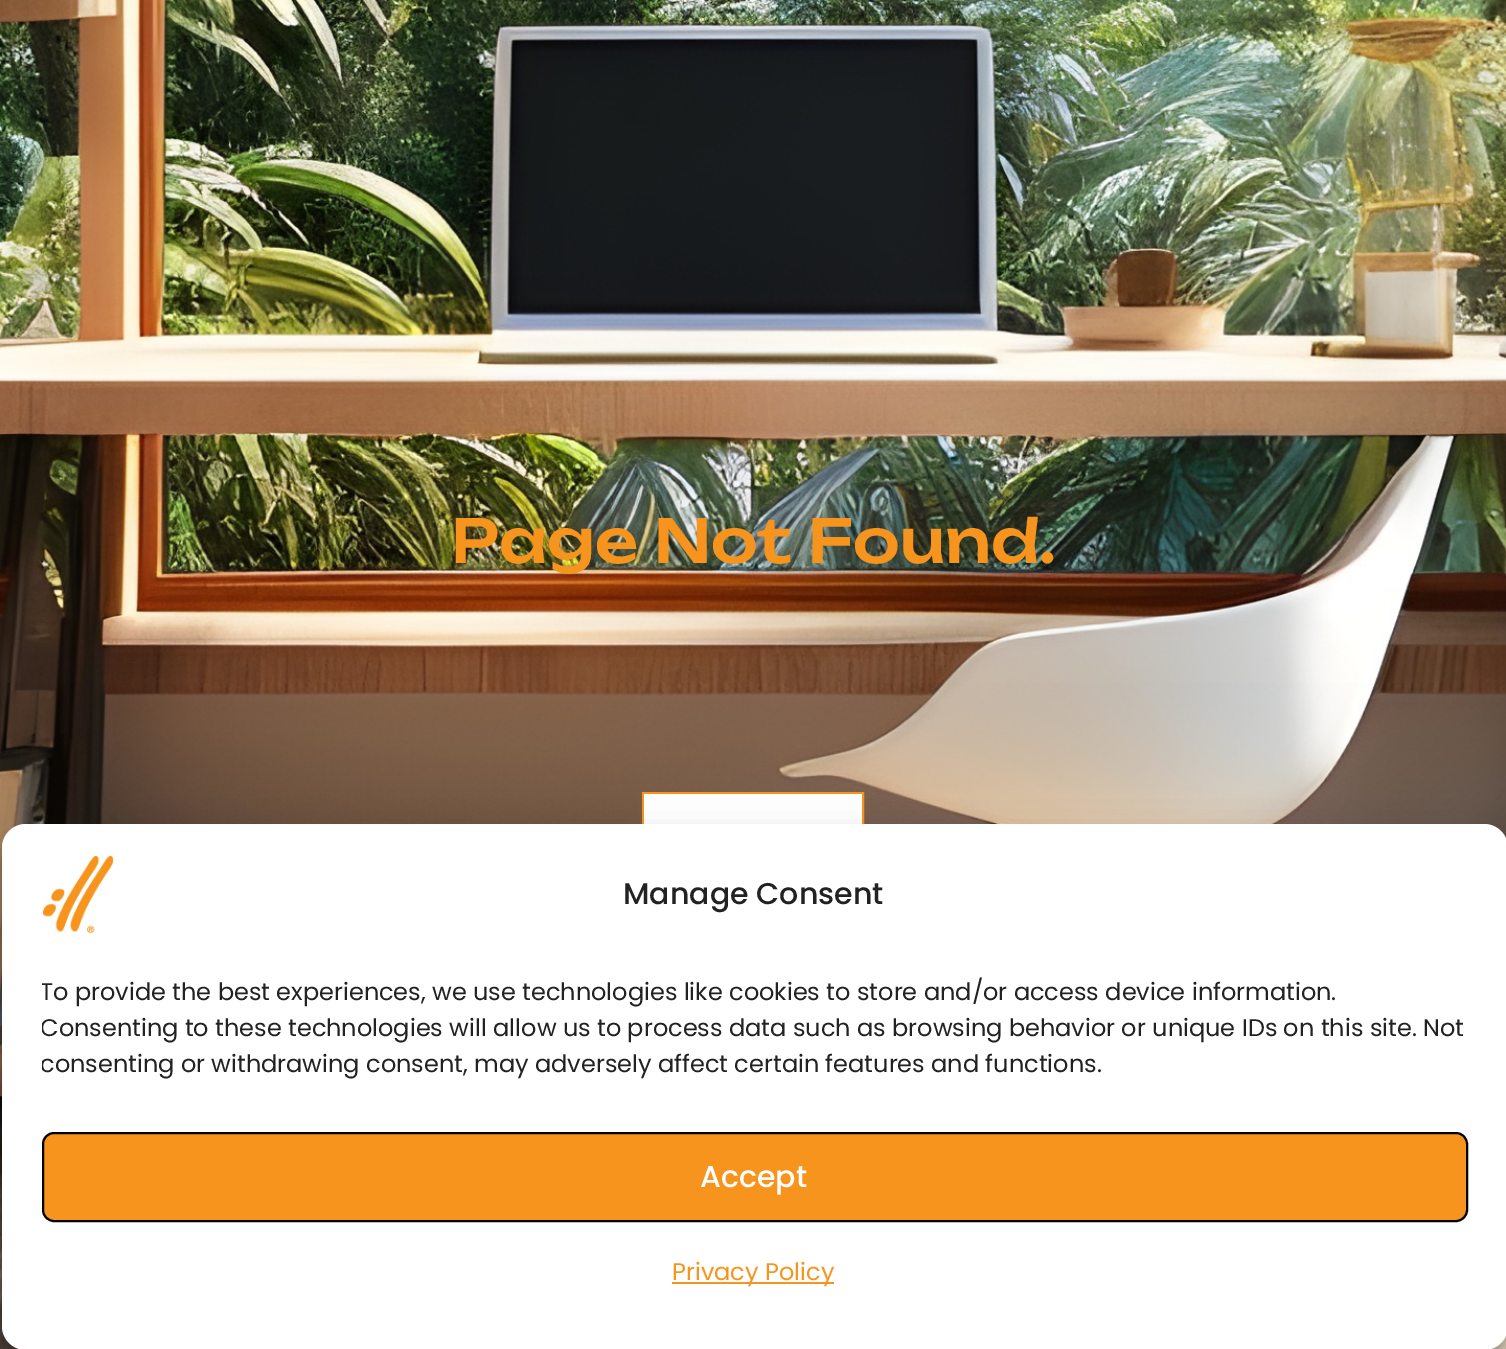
%!PS-Adobe-3.0
%%BoundingBox: 0 0 1506 1349
%%LanguageLevel: 3
%%Pages: 1
%%EndComments
%%BeginProlog
/setalpha { dup .setfillconstantalpha .setstrokeconstantalpha } def
/rrect { 5 dict begin { /r /h /w /y /x } { exch def } forall
  x r add y moveto x w add y 2 copy h add r arct x w add y h add x 1 index r arct
  x y h add x y r arct x y 2 copy exch w add exch r arct closepath end } def
/softshadow { 12 dict begin { /a /b /q /h /w /y /x } { exch def } forall gsave /was 0 def
  9 -2 -9 { dup b mul 4 div /e exch def 1 sub .425 mul 2.718 exch exp 1 add a .99 .min exch div /now exch def
    1 1 now sub 1 was sub div sub setalpha /was now def
    w h .min e 2 mul add 0 gt { x e sub y e sub w e 2 mul add h e 2 mul add
      q e add b .6 mul add w h .min 2 div e add .min 0 .max rrect fill } if } for grestore end } def
/drawimage { 5 dict begin { /h /w /y /x /name } { exch def } forall
  gsave x y translate w h scale
  w h 8 [w 0 0 h 0 0] name (r) file false 3 colorimage grestore end } def
%%EndProlog
%%BeginSetup
<< /PageSize [1506 1349] /PageUsesTransparency true >> setpagedevice
%%EndSetup
%%Page: 1 1
0 .pushpdf14devicefilter
0 1349 translate 1 -1 scale
4 setmiterlimit
1 setgray
0 0 1506 1349 rectfill
(images/1.raw) 0 0 1506 1349 drawimage
0.969 0.58 0.114 setrgbcolor
2 setlinewidth
643 793 220 112 rectstroke
1 setgray
644 794 218 30 rectfill
0 setgray
2 836 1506 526 24 6 0.23 softshadow
2 844 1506 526 24 20 0.19 softshadow
1 setgray
2 824 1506 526 24 rrect fill
(images/2.raw) 42 855 72 79 drawimage
0.969 0.58 0.114 setrgbcolor
43 1133 1424 88 11 rrect gsave fill grestore
0 setgray
stroke
0.969 0.58 0.114 setrgbcolor
672 1282 162 2 rectfill
/Unbounded-Medium [60 0 0 -60 0 0] selectfont
451 563 moveto (Page Not Found.) show
/Poppins-Medium [30 0 0 -30 0 0] selectfont
0.133 setgray
623 904 moveto (Manage Consent) show
gsave
42 974 1426 118 rectclip
/Poppins-Regular [24 0 0 -24 0 0] selectfont
40 1000 moveto (To provide the best experiences, we use technologies like cookies to store and/or access device information.) show
40 1036 moveto (Consenting to these technologies will allow us to process data such as browsing behavior or unique IDs on this site. Not) show
40 1072 moveto (consenting or withdrawing consent, may adversely affect certain features and functions.) show
grestore
1 setgray
700 1187 moveto (Accept) show
/Poppins-Regular [24 0 0 -24 0 0] selectfont
0.969 0.58 0.114 setrgbcolor
672 1280 moveto (Privacy Policy) show
.poppdf14devicefilter showpage
%%EOF
